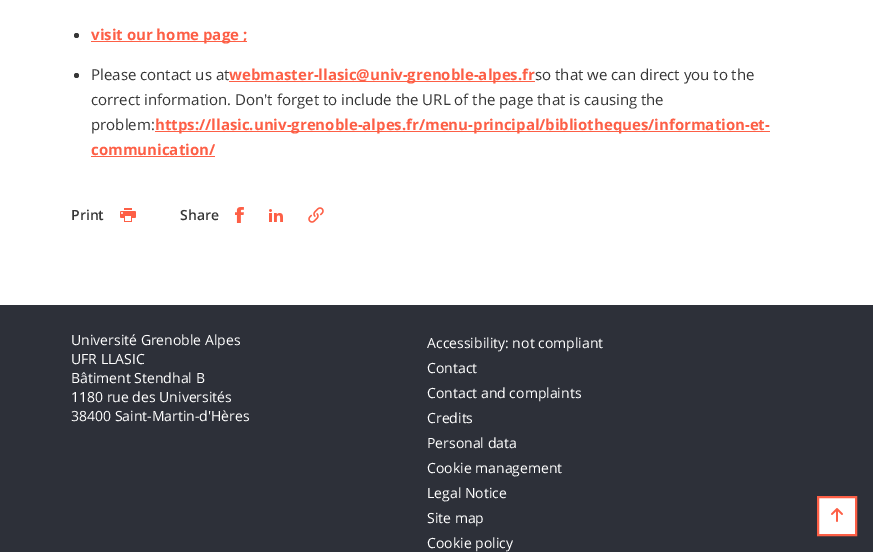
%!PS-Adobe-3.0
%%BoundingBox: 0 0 873 552
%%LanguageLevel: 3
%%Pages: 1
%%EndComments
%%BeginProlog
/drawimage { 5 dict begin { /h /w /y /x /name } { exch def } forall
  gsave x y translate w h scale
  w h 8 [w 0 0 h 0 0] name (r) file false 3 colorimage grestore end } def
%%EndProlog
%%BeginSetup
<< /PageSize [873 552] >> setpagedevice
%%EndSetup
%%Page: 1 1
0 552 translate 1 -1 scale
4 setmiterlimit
1 setgray
0 0 873 552 rectfill
0.212 setgray
newpath 76.5 35.5 2.5 0 360 arc closepath fill
0.992 0.373 0.275 setrgbcolor
91 41 156 1 rectfill
0.212 setgray
newpath 76.5 75.5 2.5 0 360 arc closepath fill
0.992 0.373 0.275 setrgbcolor
229 81 306 1 rectfill
155 131 615 1 rectfill
91 156 124 1 rectfill
(images/1.raw) 120 208 16 14 drawimage
(images/2.raw) 235 207 9 16 drawimage
(images/3.raw) 269 209 14 13 drawimage
(images/4.raw) 308 207 16 16 drawimage
0.176 0.188 0.224 setrgbcolor
0 305 873 247 rectfill
1 setgray
newpath 818 497 moveto 856 497 lineto 856 535 lineto 818 535 lineto closepath gsave fill grestore
0.992 0.373 0.275 setrgbcolor
2 setlinewidth
stroke
(images/5.raw) 831 508 12 14 drawimage
/OpenSans-Bold [15 0 0 -15 0 0] selectfont
91 40 moveto (visit our home page ;) show
/OpenSans-Regular [15 0 0 -15 0 0] selectfont
0.212 setgray
91 80 moveto (Please contact us at) show
/OpenSans-Bold [15 0 0 -15 0 0] selectfont
0.992 0.373 0.275 setrgbcolor
229 80 moveto (webmaster-llasic@univ-grenoble-alpes.fr) show
/OpenSans-Regular [15 0 0 -15 0 0] selectfont
0.212 setgray
535 80 moveto (so that we can direct you to the) show
91 105 moveto (correct information. Don't forget to include the URL of the page that is causing the) show
91 130 moveto (problem:) show
/OpenSans-Bold [15 0 0 -15 0 0] selectfont
0.992 0.373 0.275 setrgbcolor
155 130 moveto (https://llasic.univ-grenoble-alpes.fr/menu-principal/bibliotheques/information-et-) show
91 155 moveto (communication/) show
/OpenSans-SemiBold [14 0 0 -14 0 0] selectfont
0.212 setgray
71 220 moveto (Print) show
180 220 moveto (Share) show
/OpenSans-Regular [14 0 0 -14 0 0] selectfont
1 setgray
71 345 moveto (Université Grenoble Alpes) show
71 364 moveto (UFR LLASIC) show
71 383 moveto (Bâtiment Stendhal B) show
71 402 moveto (1180 rue des Universités) show
71 421 moveto (38400 Saint-Martin-d'Hères) show
427 348 moveto (Accessibility: not compliant) show
427 373 moveto (Contact) show
427 398 moveto (Contact and complaints) show
427 423 moveto (Credits) show
427 448 moveto (Personal data) show
427 473 moveto (Cookie management) show
427 498 moveto (Legal Notice) show
427 523 moveto (Site map) show
427 548 moveto (Cookie policy) show
showpage
%%EOF
